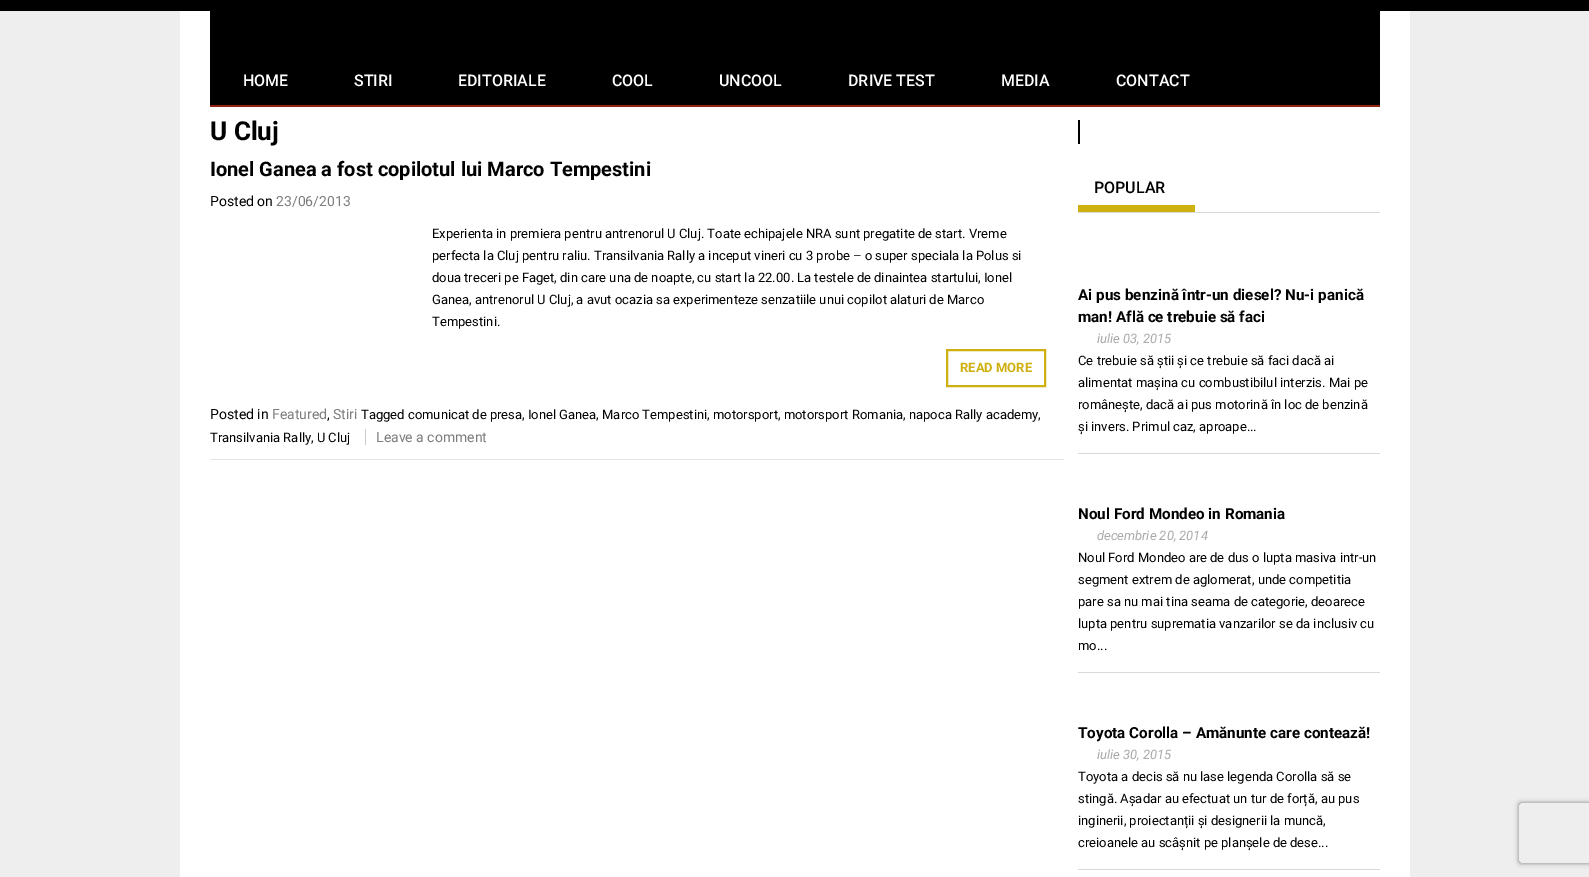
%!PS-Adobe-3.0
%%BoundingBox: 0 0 1589 877
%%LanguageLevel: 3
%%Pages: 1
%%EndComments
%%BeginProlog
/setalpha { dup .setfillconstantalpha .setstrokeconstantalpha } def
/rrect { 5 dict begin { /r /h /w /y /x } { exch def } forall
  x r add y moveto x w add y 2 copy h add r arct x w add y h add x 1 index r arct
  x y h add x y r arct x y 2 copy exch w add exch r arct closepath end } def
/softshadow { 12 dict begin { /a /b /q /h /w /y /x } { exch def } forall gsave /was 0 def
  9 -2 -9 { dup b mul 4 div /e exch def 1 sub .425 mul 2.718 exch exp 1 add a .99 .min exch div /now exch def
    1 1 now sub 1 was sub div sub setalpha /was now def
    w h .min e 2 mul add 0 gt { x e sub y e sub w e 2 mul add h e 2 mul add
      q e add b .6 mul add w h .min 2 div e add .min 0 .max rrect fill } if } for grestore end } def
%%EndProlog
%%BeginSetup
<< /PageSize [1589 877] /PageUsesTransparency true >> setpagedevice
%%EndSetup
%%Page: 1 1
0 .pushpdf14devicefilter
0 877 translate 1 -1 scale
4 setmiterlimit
0.933 0.933 0.937 setrgbcolor
0 0 1589 877 rectfill
0 setgray
0 0 1589 11 rectfill
1 setgray
180 11 1230 866 rectfill
0 setgray
210 11 1170 46 rectfill
1222 57 158 48 rectfill
0.576 0.133 0.075 setrgbcolor
1222 105 158 2 rectfill
0 setgray
210 57 1012 48 rectfill
0.576 0.133 0.075 setrgbcolor
210 105 1012 2 rectfill
0.898 setgray
210 459 854 1 rectfill
0.808 0.69 0.063 setrgbcolor
2 setlinewidth
947 350 98 36 rectstroke
0.8 setgray
365 429 1 16 rectfill
0 setgray
1078 120 2 24 rectfill
0.851 setgray
1078 212 302 1 rectfill
0.808 0.69 0.063 setrgbcolor
1078 205 117 7 rectfill
0.851 setgray
1078 453 302 1 rectfill
1078 672 302 1 rectfill
1078 869 302 1 rectfill
gsave
newpath 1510 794 moveto 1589 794 lineto 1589 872 lineto 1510 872 lineto closepath 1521 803 moveto 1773 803 lineto 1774 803 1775 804 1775 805 curveto 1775 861 lineto 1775 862 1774 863 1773 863 curveto 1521 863 lineto 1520 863 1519 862 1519 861 curveto 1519 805 lineto 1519 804 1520 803 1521 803 curveto closepath eoclip newpath
0.502 setgray
1519 803 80 60 2 2.5 1 softshadow
grestore
/Roboto-Medium [16 0 0 -16 0 0] selectfont
1 setgray
243 86 moveto (HOME) show
354 86 moveto (STIRI) show
458 86 moveto (EDITORIALE) show
612 86 moveto (COOL) show
719 86 moveto (UNCOOL) show
848 86 moveto (DRIVE TEST) show
1001 86 moveto (MEDIA) show
1116 86 moveto (CONTACT) show
/Roboto-Bold [26 0 0 -26 0 0] selectfont
0 setgray
210 140 moveto (U Cluj) show
/Roboto-Bold [20 0 0 -20 0 0] selectfont
210 176 moveto (Ionel Ganea a fost copilotul lui Marco Tempestini) show
/Roboto-Regular [14 0 0 -14 0 0] selectfont
210 206 moveto (Posted on) show
0.486 setgray
276 206 moveto (23/06/2013) show
/Roboto-Regular [13 0 0 -13 0 0] selectfont
0 setgray
432 238 moveto (Experienta in premiera pentru antrenorul U Cluj. Toate echipajele NRA sunt pregatite de start. Vreme) show
432 260 moveto (perfecta la Cluj pentru raliu. Transilvania Rally a inceput vineri cu 3 probe – o super speciala la Polus si) show
432 282 moveto (doua treceri pe Faget, din care una de noapte, cu start la 22.00. La testele de dinaintea startului, Ionel) show
432 304 moveto (Ganea, antrenorul U Cluj, a avut ocazia sa experimenteze senzatiile unui copilot alaturi de Marco) show
432 326 moveto (Tempestini.) show
/Roboto-Bold [13 0 0 -13 0 0] selectfont
0.808 0.69 0.063 setrgbcolor
960 372 moveto (READ MORE) show
/Roboto-Regular [14 0 0 -14 0 0] selectfont
0 setgray
210 419 moveto (Posted in) show
0.486 setgray
272 419 moveto (Featured) show
0 setgray
327 419 moveto (,) show
0.486 setgray
333 419 moveto (Stiri) show
/Roboto-Regular [13 0 0 -13 0 0] selectfont
0 setgray
361 419 moveto (Tagged comunicat de presa, Ionel Ganea, Marco Tempestini, motorsport, motorsport Romania, napoca Rally academy,) show
210 442 moveto (Transilvania Rally, U Cluj) show
/Roboto-Regular [14 0 0 -14 0 0] selectfont
0.486 setgray
376 442 moveto (Leave a comment) show
/Roboto-Medium [16 0 0 -16 0 0] selectfont
0 setgray
1094 193 moveto (POPULAR) show
/Roboto-Bold [15.25 0 0 -15.25 0 0] selectfont
1078 300 moveto (Ai pus benzină într-un diesel? Nu-i panică) show
1078 322 moveto (man! Află ce trebuie să faci) show
/Roboto-Italic [13 0 0 -13 0 0] selectfont
0.663 setgray
1097 343 moveto (iulie 03, 2015) show
/Roboto-Regular [13 0 0 -13 0 0] selectfont
0 setgray
1078 365 moveto (Ce trebuie să știi și ce trebuie să faci dacă ai) show
1078 387 moveto (alimentat mașina cu combustibilul interzis. Mai pe) show
1078 409 moveto (românește, dacă ai pus motorină în loc de benzină) show
1078 431 moveto (și invers. Primul caz, aproape...) show
/Roboto-Bold [15.25 0 0 -15.25 0 0] selectfont
1078 519 moveto (Noul Ford Mondeo in Romania) show
/Roboto-Italic [13 0 0 -13 0 0] selectfont
0.663 setgray
1097 540 moveto (decembrie 20, 2014) show
/Roboto-Regular [13 0 0 -13 0 0] selectfont
0 setgray
1078 562 moveto (Noul Ford Mondeo are de dus o lupta masiva intr-un) show
1078 584 moveto (segment extrem de aglomerat, unde competitia) show
1078 606 moveto (pare sa nu mai tina seama de categorie, deoarece) show
1078 628 moveto (lupta pentru suprematia vanzarilor se da inclusiv cu) show
1078 650 moveto (mo...) show
/Roboto-Bold [15.25 0 0 -15.25 0 0] selectfont
1078 738 moveto (Toyota Corolla – Amănunte care contează!) show
/Roboto-Italic [13 0 0 -13 0 0] selectfont
0.663 setgray
1097 759 moveto (iulie 30, 2015) show
/Roboto-Regular [13 0 0 -13 0 0] selectfont
0 setgray
1078 781 moveto (Toyota a decis să nu lase legenda Corolla să se) show
1078 803 moveto (stingă. Așadar au efectuat un tur de forță, au pus) show
1078 825 moveto (inginerii, proiectanții și designerii la muncă,) show
1078 847 moveto (creioanele au scâșnit pe planșele de dese...) show
.poppdf14devicefilter showpage
%%EOF
